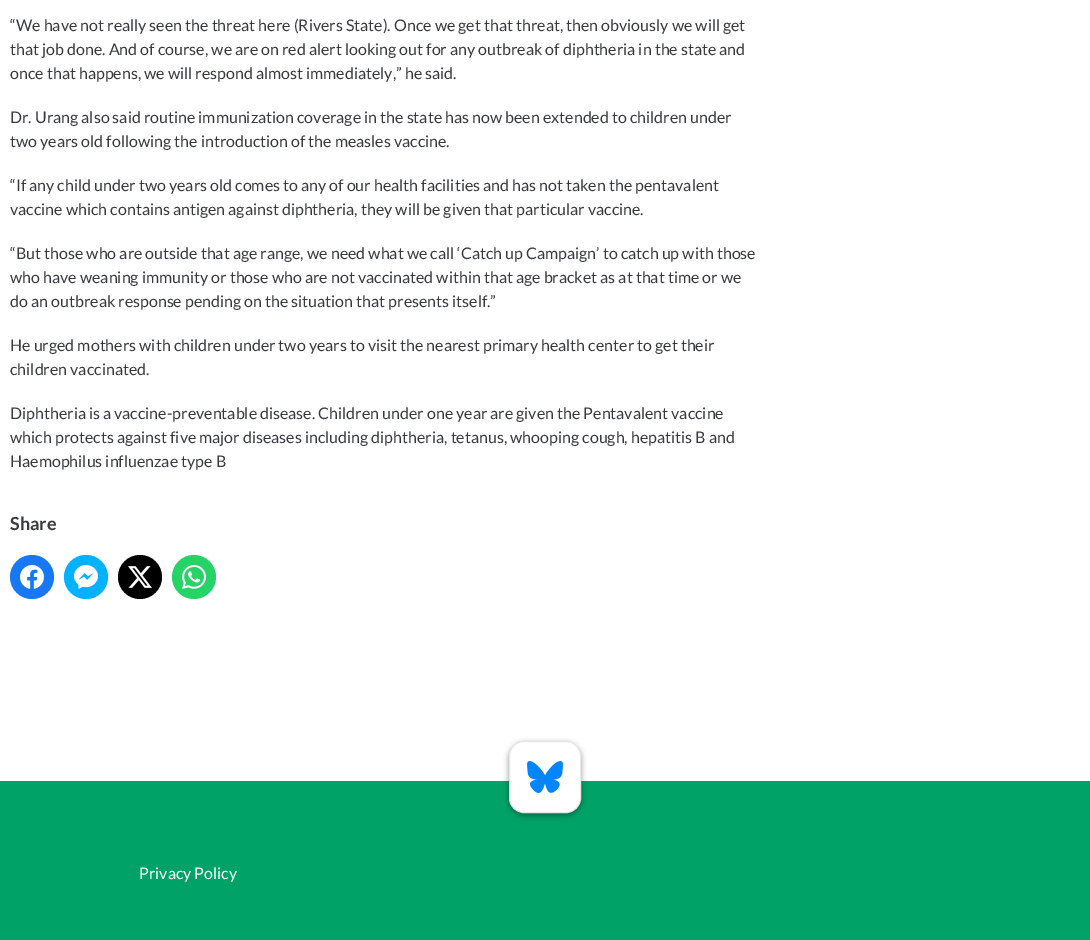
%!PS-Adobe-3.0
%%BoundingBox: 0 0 1090 940
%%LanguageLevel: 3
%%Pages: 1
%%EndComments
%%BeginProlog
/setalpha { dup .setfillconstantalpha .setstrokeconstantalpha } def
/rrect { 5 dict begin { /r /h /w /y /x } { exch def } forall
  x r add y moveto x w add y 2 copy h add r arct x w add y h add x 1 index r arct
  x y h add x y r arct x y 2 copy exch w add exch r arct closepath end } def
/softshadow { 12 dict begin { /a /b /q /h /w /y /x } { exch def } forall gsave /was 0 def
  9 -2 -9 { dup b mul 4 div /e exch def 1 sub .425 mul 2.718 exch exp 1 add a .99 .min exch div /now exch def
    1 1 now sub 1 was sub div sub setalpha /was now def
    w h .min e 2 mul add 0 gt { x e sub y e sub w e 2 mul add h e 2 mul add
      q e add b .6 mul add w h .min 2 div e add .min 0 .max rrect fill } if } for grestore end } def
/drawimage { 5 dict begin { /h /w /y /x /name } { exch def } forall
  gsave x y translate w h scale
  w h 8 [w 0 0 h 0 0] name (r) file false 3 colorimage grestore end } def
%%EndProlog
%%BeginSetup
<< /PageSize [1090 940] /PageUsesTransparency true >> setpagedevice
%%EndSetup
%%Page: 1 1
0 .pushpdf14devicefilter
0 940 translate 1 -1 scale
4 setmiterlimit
1 setgray
0 0 1090 940 rectfill
0.094 0.467 0.949 setrgbcolor
newpath 32 577 22 0 360 arc closepath fill
(images/1.raw) 20 565 24 24 drawimage
0 0.698 1 setrgbcolor
newpath 86 577 22 0 360 arc closepath fill
(images/2.raw) 74 565 24 24 drawimage
0 setgray
newpath 140 577 22 0 360 arc closepath fill
(images/3.raw) 128 566 24 22 drawimage
0.145 0.827 0.4 setrgbcolor
newpath 194 577 22 0 360 arc closepath fill
(images/4.raw) 182 565 24 24 drawimage
0 0.635 0.404 setrgbcolor
0 781 1090 159 rectfill
0 setgray
508 742 74 74 16 2.5 0.3 softshadow
1 setgray
509.5 741.5 71 71 14.5 rrect gsave fill grestore
0.91 0.902 0.902 setrgbcolor
stroke
(images/5.raw) 527 761 36 32 drawimage
/Lato-Regular [16 0 0 -16 0 0] selectfont
0.216 0.227 0.243 setrgbcolor
10 31 moveto (“We have not really seen the threat here \(Rivers State\). Once we get that threat, then obviously we will get) show
10 55 moveto (that job done. And of course, we are on red alert looking out for any outbreak of diphtheria in the state and) show
10 79 moveto (once that happens, we will respond almost immediately,” he said.) show
10 123 moveto (Dr. Urang also said routine immunization coverage in the state has now been extended to children under) show
10 147 moveto (two years old following the introduction of the measles vaccine.) show
10 191 moveto (“If any child under two years old comes to any of our health facilities and has not taken the pentavalent) show
10 215 moveto (vaccine which contains antigen against diphtheria, they will be given that particular vaccine.) show
10 259 moveto (“But those who are outside that age range, we need what we call ‘Catch up Campaign’ to catch up with those) show
10 283 moveto (who have weaning immunity or those who are not vaccinated within that age bracket as at that time or we) show
10 307 moveto (do an outbreak response pending on the situation that presents itself.”) show
10 351 moveto (He urged mothers with children under two years to visit the nearest primary health center to get their) show
10 375 moveto (children vaccinated.) show
10 419 moveto (Diphtheria is a vaccine-preventable disease. Children under one year are given the Pentavalent vaccine) show
10 443 moveto (which protects against five major diseases including diphtheria, tetanus, whooping cough, hepatitis B and) show
10 467 moveto (Haemophilus influenzae type B) show
/Lato-Bold [18 0 0 -18 0 0] selectfont
10 530 moveto (Share) show
/Lato-Regular [16 0 0 -16 0 0] selectfont
1 setgray
139 879 moveto (Privacy Policy) show
.poppdf14devicefilter showpage
%%EOF
